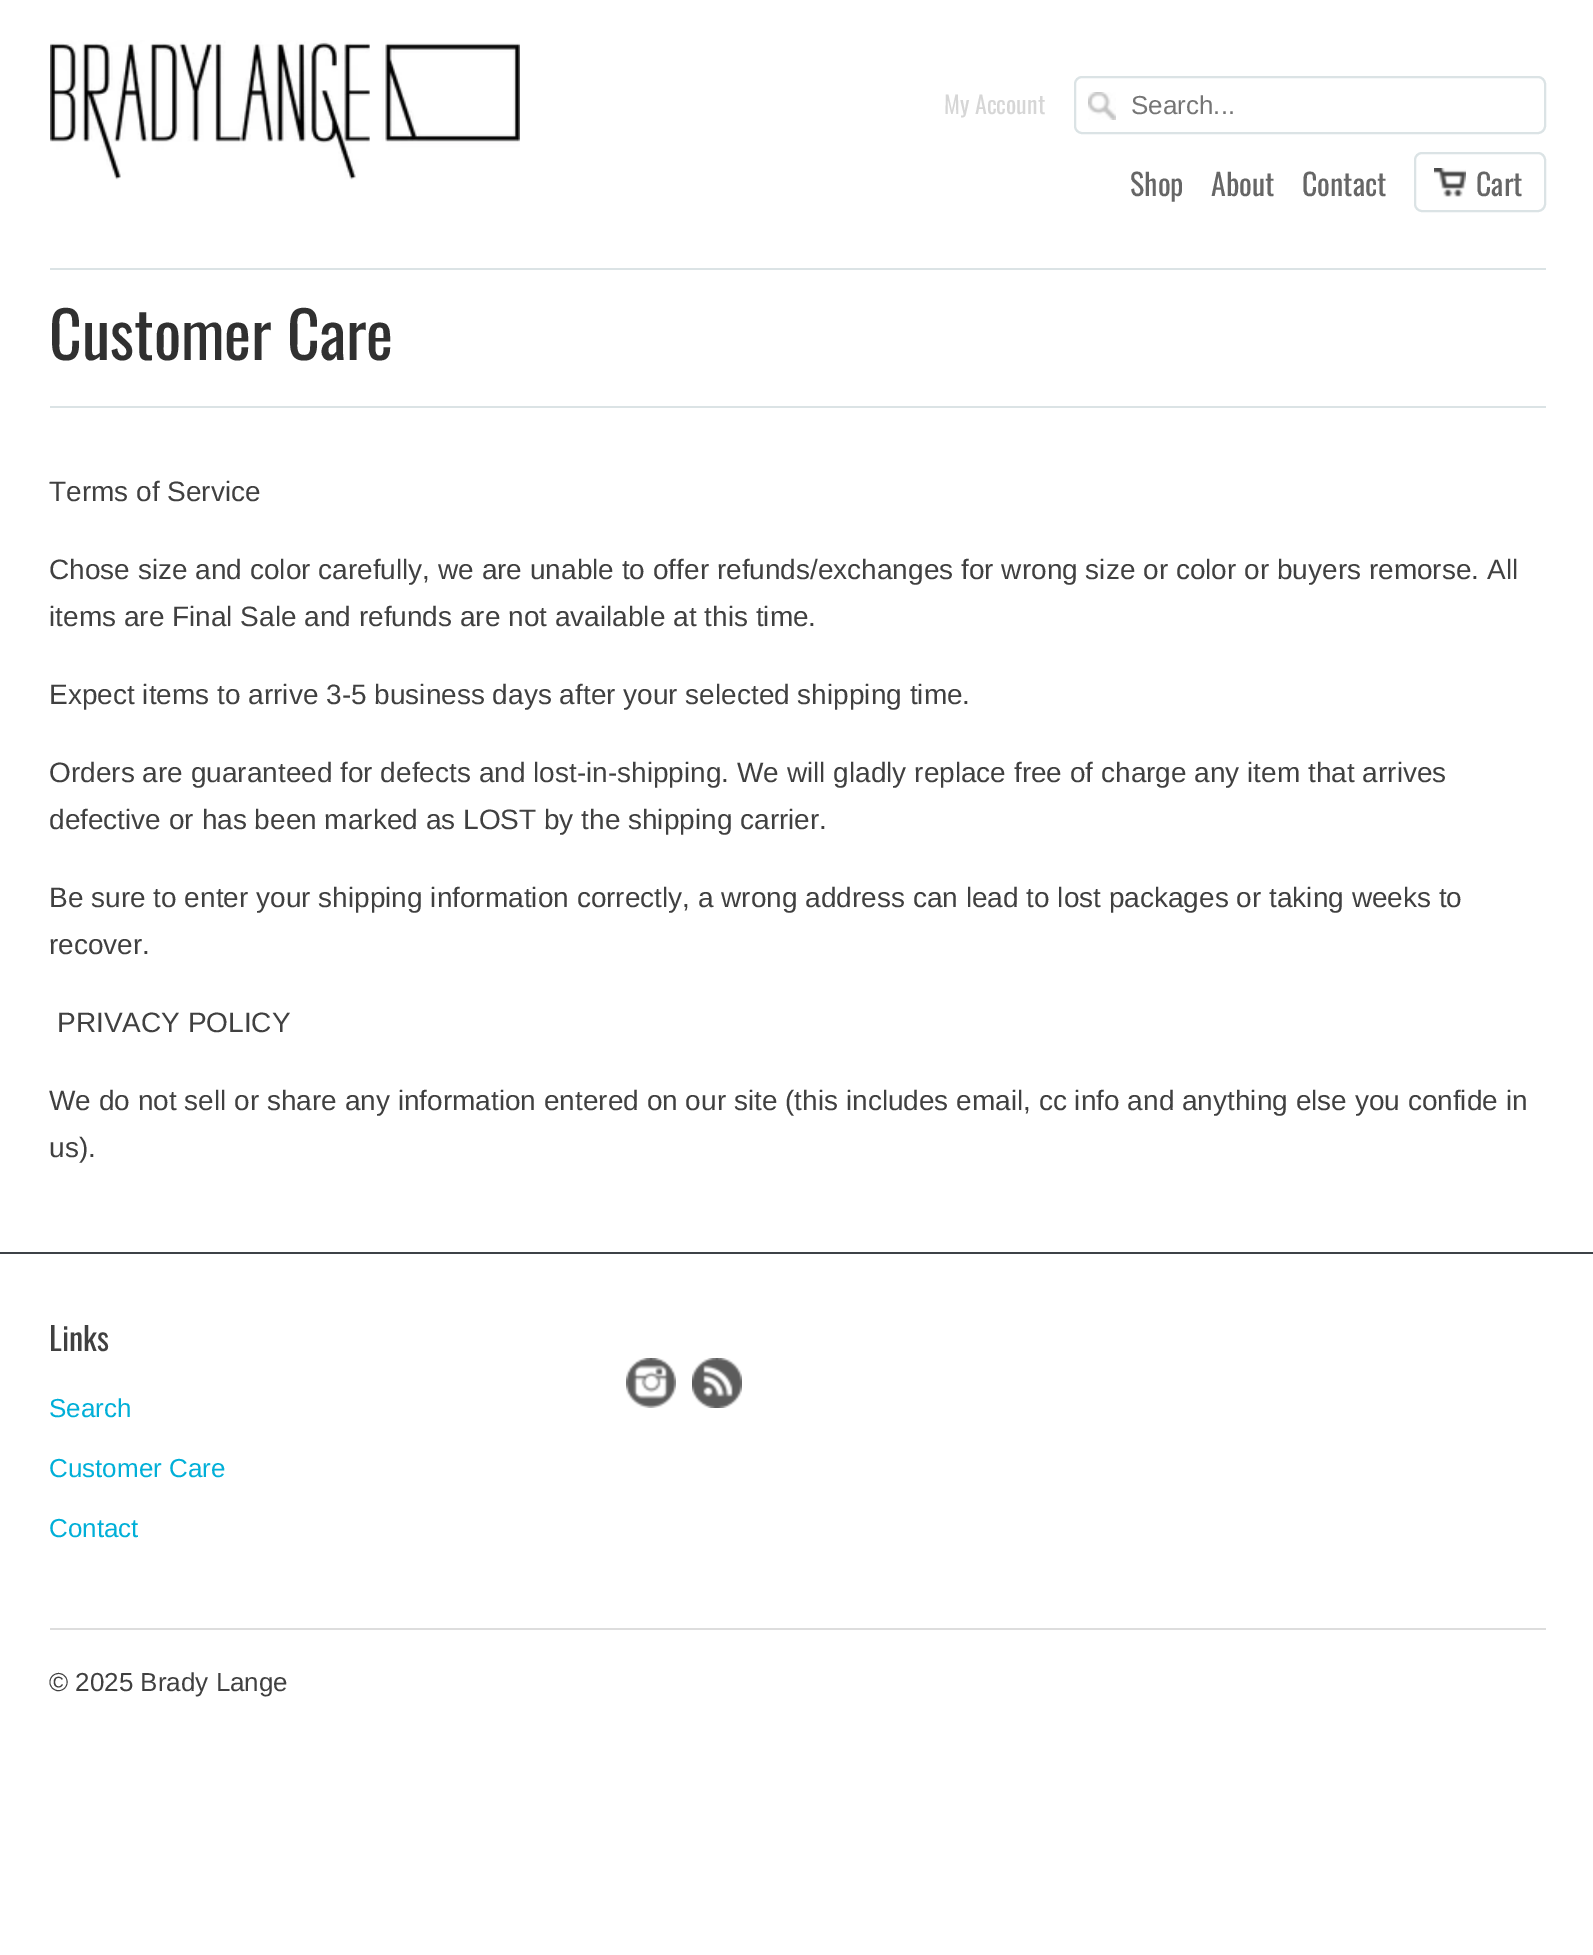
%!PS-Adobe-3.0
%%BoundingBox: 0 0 1593 1955
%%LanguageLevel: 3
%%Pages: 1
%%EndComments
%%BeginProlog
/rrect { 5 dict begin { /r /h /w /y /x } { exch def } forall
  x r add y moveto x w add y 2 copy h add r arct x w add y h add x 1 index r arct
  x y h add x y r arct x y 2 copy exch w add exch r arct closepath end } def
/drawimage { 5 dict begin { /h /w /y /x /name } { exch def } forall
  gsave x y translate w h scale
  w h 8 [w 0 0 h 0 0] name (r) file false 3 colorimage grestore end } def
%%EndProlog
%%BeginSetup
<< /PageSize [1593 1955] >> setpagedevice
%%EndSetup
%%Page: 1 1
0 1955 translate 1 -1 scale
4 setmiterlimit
1 setgray
0 0 1593 1955 rectfill
(images/1.raw) 50 40 470 140 drawimage
(images/2.raw) 1088 92 28 28 drawimage
0.859 0.89 0.898 setrgbcolor
2 setlinewidth
1075 77 470 56 7 rrect stroke
(images/3.raw) 1434 168 32 29 drawimage
1415 153 130 58 7 rrect stroke
50 268 1496 2 rectfill
50 406 1496 2 rectfill
0.239 0.259 0.278 setrgbcolor
0 1252 1593 2 rectfill
(images/4.raw) 626 1358 50 50 drawimage
(images/5.raw) 692 1358 50 50 drawimage
0.867 setgray
50 1628 1496 2 rectfill
/Oswald-Regular [24 0 0 -24 0 0] selectfont
0.839 setgray
944 114 moveto (My Account) show
/LiberationSans-Regular [26 0 0 -26 0 0] selectfont
0.459 setgray
1131 114 moveto (Search...) show
/Oswald-Regular [30 0 0 -30 0 0] selectfont
0.4 setgray
1130 196 moveto (Shop) show
1211 196 moveto (About) show
1302 196 moveto (Contact) show
1476 196 moveto (Cart) show
/Oswald-Regular [64 0 0 -64 0 0] selectfont
0.188 setgray
49 360 moveto (Customer Care) show
/LiberationSans-Regular [28 0 0 -28 0 0] selectfont
0.251 setgray
49 501 moveto (Terms of Service) show
49 579 moveto (Chose size and color carefully, we are unable to offer refunds/exchanges for wrong size or color or buyers remorse. All) show
49 626 moveto (items are Final Sale and refunds are not available at this time.) show
49 704 moveto (Expect items to arrive 3-5 business days after your selected shipping time.) show
49 782 moveto (Orders are guaranteed for defects and lost-in-shipping. We will gladly replace free of charge any item that arrives) show
49 829 moveto (defective or has been marked as LOST by the shipping carrier.) show
49 907 moveto (Be sure to enter your shipping information correctly, a wrong address can lead to lost packages or taking weeks to) show
49 954 moveto (recover.) show
57 1032 moveto (PRIVACY POLICY) show
49 1110 moveto (We do not sell or share any information entered on our site \(this includes email, cc info and anything else you confide in) show
49 1157 moveto (us\).) show
/Oswald-Regular [32 0 0 -32 0 0] selectfont
49 1351 moveto (Links) show
/LiberationSans-Regular [26 0 0 -26 0 0] selectfont
0 0.686 0.847 setrgbcolor
49 1417 moveto (Search) show
49 1477 moveto (Customer Care) show
49 1537 moveto (Contact) show
0.251 setgray
49 1691 moveto (© 2025 Brady Lange) show
showpage
%%EOF
